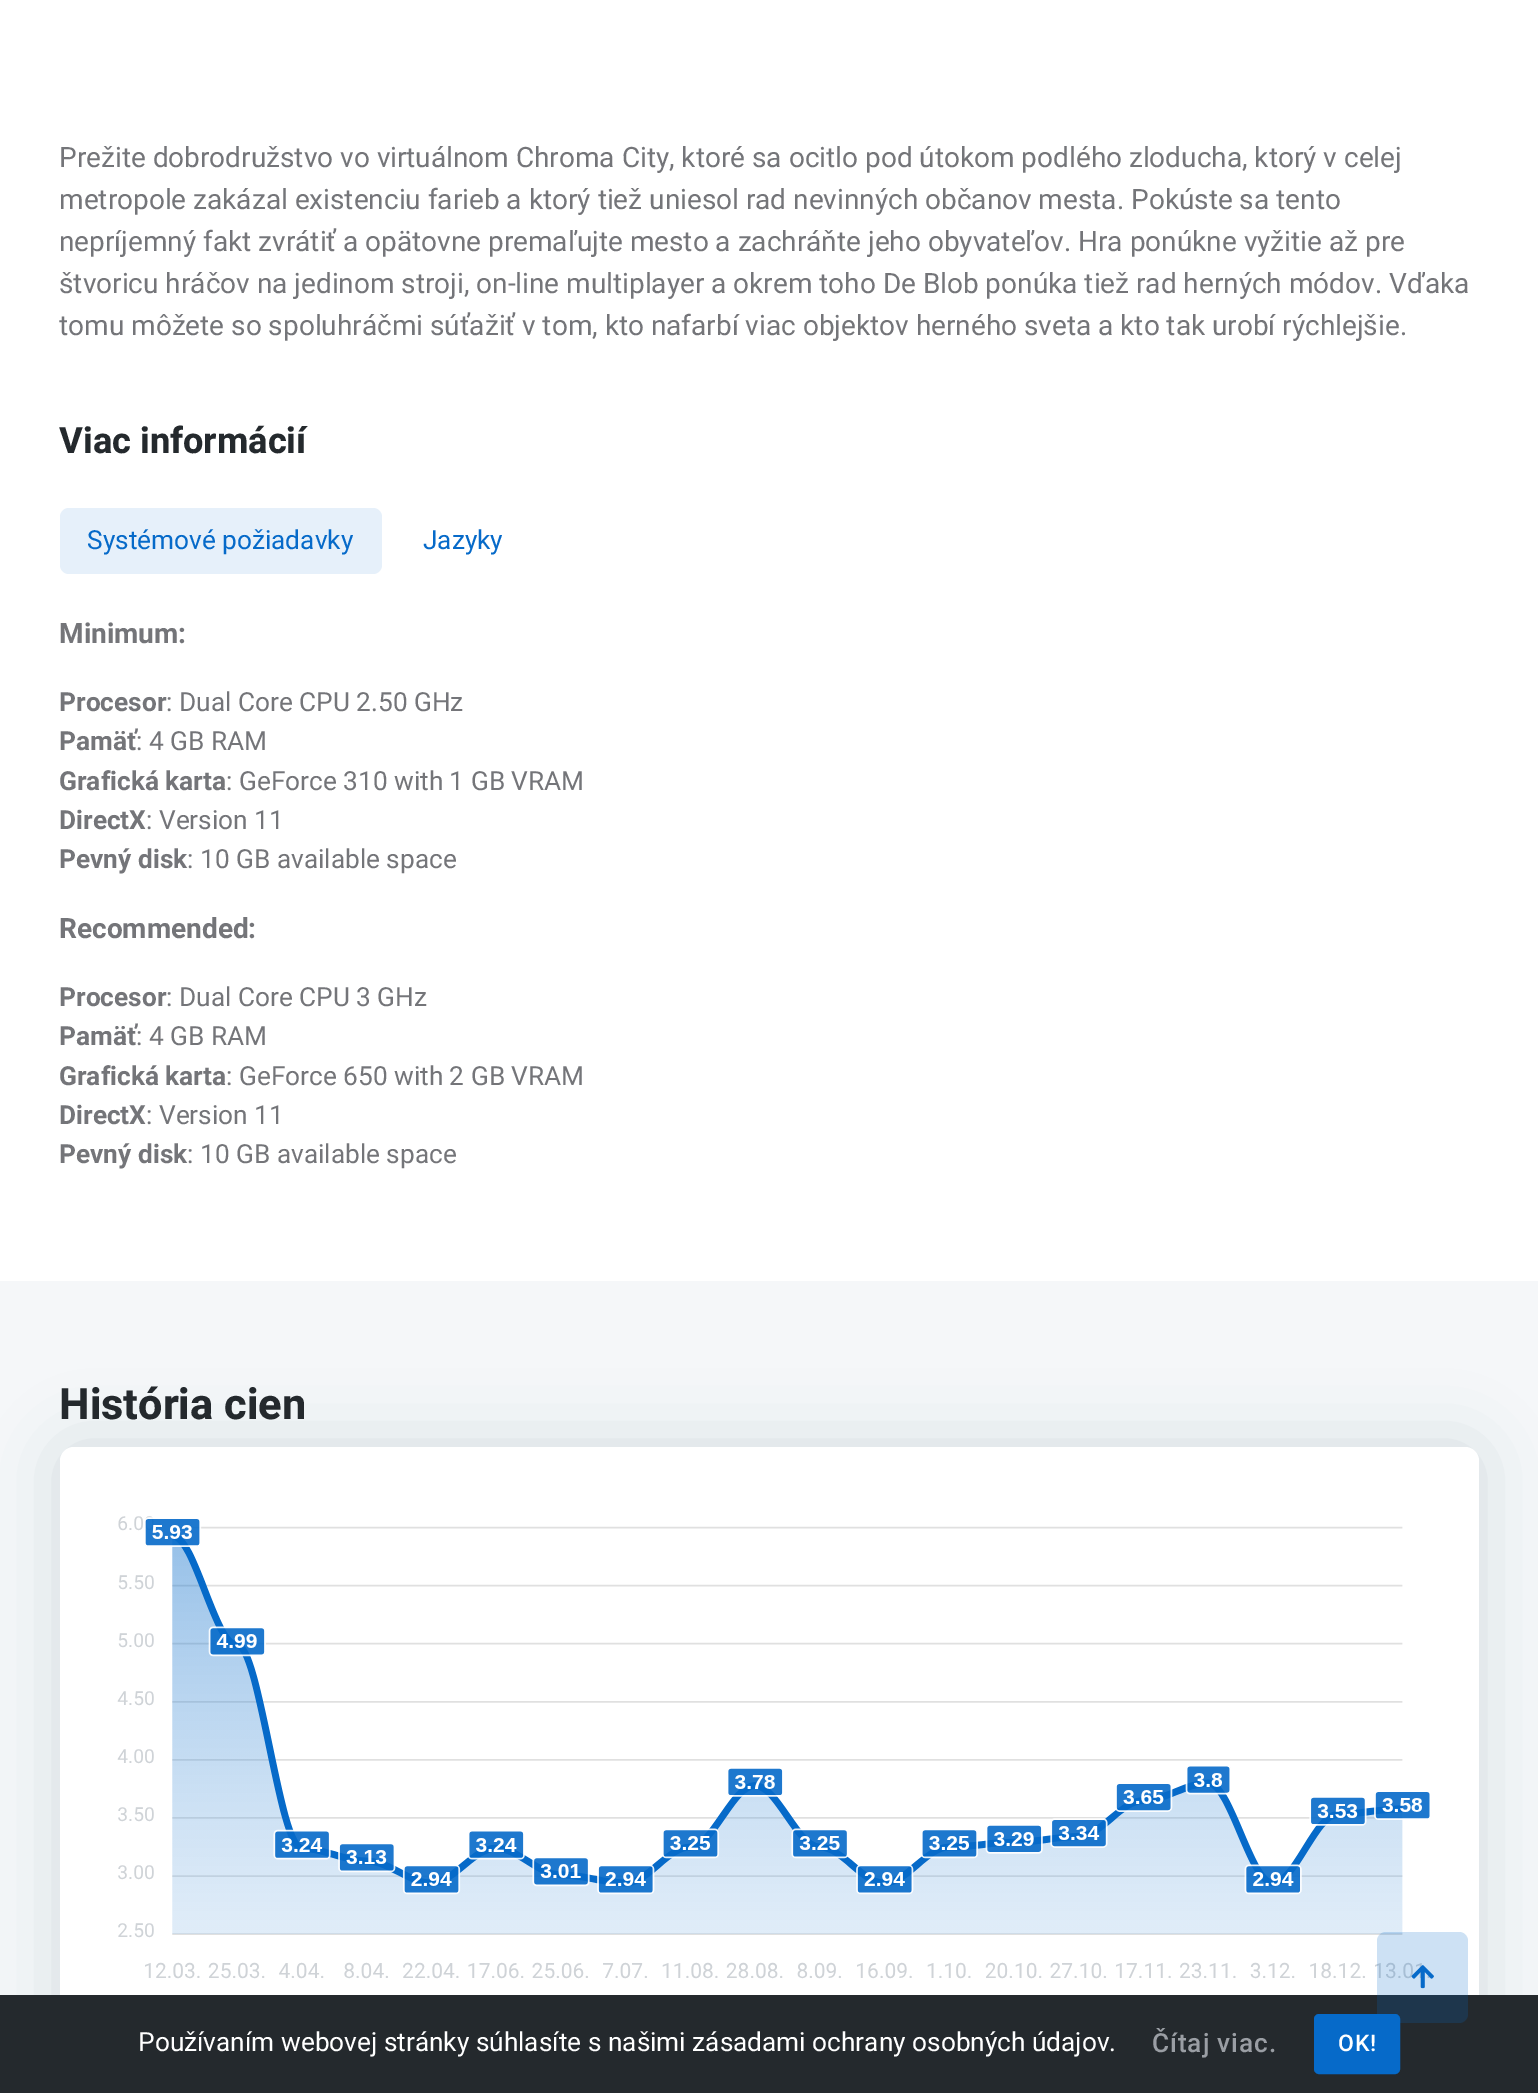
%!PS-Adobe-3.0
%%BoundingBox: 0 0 1538 2093
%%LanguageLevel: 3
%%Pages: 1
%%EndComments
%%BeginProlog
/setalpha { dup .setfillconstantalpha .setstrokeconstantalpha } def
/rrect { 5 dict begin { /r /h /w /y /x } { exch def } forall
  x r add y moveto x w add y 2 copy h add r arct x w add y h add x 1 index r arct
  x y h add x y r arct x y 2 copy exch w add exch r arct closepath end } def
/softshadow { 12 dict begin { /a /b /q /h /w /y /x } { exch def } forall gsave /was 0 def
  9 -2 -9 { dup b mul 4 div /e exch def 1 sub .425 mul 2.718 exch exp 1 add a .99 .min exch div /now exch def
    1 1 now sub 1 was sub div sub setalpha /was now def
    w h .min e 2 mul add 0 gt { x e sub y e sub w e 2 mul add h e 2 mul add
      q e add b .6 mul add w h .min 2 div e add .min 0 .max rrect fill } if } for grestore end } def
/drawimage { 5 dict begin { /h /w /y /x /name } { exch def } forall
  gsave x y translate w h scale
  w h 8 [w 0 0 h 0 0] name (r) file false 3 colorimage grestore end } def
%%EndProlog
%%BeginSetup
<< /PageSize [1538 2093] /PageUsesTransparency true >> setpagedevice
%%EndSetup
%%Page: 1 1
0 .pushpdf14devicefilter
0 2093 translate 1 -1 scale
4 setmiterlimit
1 setgray
0 0 1538 2093 rectfill
0.902 0.941 0.98 setrgbcolor
60 508 322 66 9 rrect fill
0.961 0.969 0.976 setrgbcolor
0 1281 1538 714 rectfill
0.114 0.227 0.325 setrgbcolor
60 1447 1419 608 14 35 0.15 softshadow
1 setgray
60 1447 1419 608 14 rrect fill
(images/1.raw) 117 1516 1313 463 drawimage
0.141 0.161 0.176 setrgbcolor
0 1995 1538 98 rectfill
0.024 0.416 0.788 setrgbcolor
1315 2015 84 58 4 rrect gsave fill grestore
2 setlinewidth
stroke
0.2 setalpha
1377 1932 91 91 9 rrect fill
1 setalpha
(images/2.raw) 1411 1965 23 24 drawimage
/Roboto-Regular [28 0 0 -28 0 0] selectfont
0.455 0.459 0.475 setrgbcolor
59 167 moveto (Prežite dobrodružstvo vo virtuálnom Chroma City, ktoré sa ocitlo pod útokom podlého zloducha, ktorý v celej) show
59 209 moveto (metropole zakázal existenciu farieb a ktorý tiež uniesol rad nevinných občanov mesta. Pokúste sa tento) show
59 251 moveto (nepríjemný fakt zvrátiť a opätovne premaľujte mesto a zachráňte jeho obyvateľov. Hra ponúkne vyžitie až pre) show
59 293 moveto (štvoricu hráčov na jedinom stroji, on-line multiplayer a okrem toho De Blob ponúka tiež rad herných módov. Vďaka) show
59 335 moveto (tomu môžete so spoluhráčmi súťažiť v tom, kto nafarbí viac objektov herného sveta a kto tak urobí rýchlejšie.) show
/Heebo-Bold [36.25 0 0 -36.25 0 0] selectfont
0.141 0.161 0.176 setrgbcolor
59 453 moveto (Viac informácií) show
/Roboto-Regular [26.25 0 0 -26.25 0 0] selectfont
0.024 0.416 0.788 setrgbcolor
87 549 moveto (Systémové požiadavky) show
423 549 moveto (Jazyky) show
/Roboto-Bold [28 0 0 -28 0 0] selectfont
0.455 0.459 0.475 setrgbcolor
59 643 moveto (Minimum:) show
/Roboto-Bold [26.25 0 0 -26.25 0 0] selectfont
59 711 moveto (Procesor) show
/Roboto-Regular [26.25 0 0 -26.25 0 0] selectfont
166 711 moveto (: Dual Core CPU 2.50 GHz) show
/Roboto-Bold [26.25 0 0 -26.25 0 0] selectfont
59 750 moveto (Pamäť) show
/Roboto-Regular [26.25 0 0 -26.25 0 0] selectfont
136 750 moveto (: 4 GB RAM) show
/Roboto-Bold [26.25 0 0 -26.25 0 0] selectfont
59 790 moveto (Grafická karta) show
/Roboto-Regular [26.25 0 0 -26.25 0 0] selectfont
226 790 moveto (: GeForce 310 with 1 GB VRAM) show
/Roboto-Bold [26.25 0 0 -26.25 0 0] selectfont
59 829 moveto (DirectX) show
/Roboto-Regular [26.25 0 0 -26.25 0 0] selectfont
146 829 moveto (: Version 11) show
/Roboto-Bold [26.25 0 0 -26.25 0 0] selectfont
59 868 moveto (Pevný disk) show
/Roboto-Regular [26.25 0 0 -26.25 0 0] selectfont
187 868 moveto (: 10 GB available space) show
/Roboto-Bold [28 0 0 -28 0 0] selectfont
59 938 moveto (Recommended:) show
/Roboto-Bold [26.25 0 0 -26.25 0 0] selectfont
59 1006 moveto (Procesor) show
/Roboto-Regular [26.25 0 0 -26.25 0 0] selectfont
166 1006 moveto (: Dual Core CPU 3 GHz) show
/Roboto-Bold [26.25 0 0 -26.25 0 0] selectfont
59 1045 moveto (Pamäť) show
/Roboto-Regular [26.25 0 0 -26.25 0 0] selectfont
136 1045 moveto (: 4 GB RAM) show
/Roboto-Bold [26.25 0 0 -26.25 0 0] selectfont
59 1085 moveto (Grafická karta) show
/Roboto-Regular [26.25 0 0 -26.25 0 0] selectfont
226 1085 moveto (: GeForce 650 with 2 GB VRAM) show
/Roboto-Bold [26.25 0 0 -26.25 0 0] selectfont
59 1124 moveto (DirectX) show
/Roboto-Regular [26.25 0 0 -26.25 0 0] selectfont
146 1124 moveto (: Version 11) show
/Roboto-Bold [26.25 0 0 -26.25 0 0] selectfont
59 1163 moveto (Pevný disk) show
/Roboto-Regular [26.25 0 0 -26.25 0 0] selectfont
187 1163 moveto (: 10 GB available space) show
/Heebo-Bold [43.25 0 0 -43.25 0 0] selectfont
0.141 0.161 0.176 setrgbcolor
59 1419 moveto (História cien) show
/Roboto-Regular [26.25 0 0 -26.25 0 0] selectfont
1 setgray
138 2051 moveto (Používaním webovej stránky súhlasíte s našimi zásadami ochrany osobných údajov.) show
/Roboto-Medium [26.25 0 0 -26.25 0 0] selectfont
0.604 0.62 0.643 setrgbcolor
1152 2052 moveto 0.9 0 (Čítaj viac.) ashow
/Roboto-Medium [23 0 0 -23 0 0] selectfont
1 setgray
1338 2051 moveto 0.9 0 (OK!) ashow
.poppdf14devicefilter showpage
%%EOF
